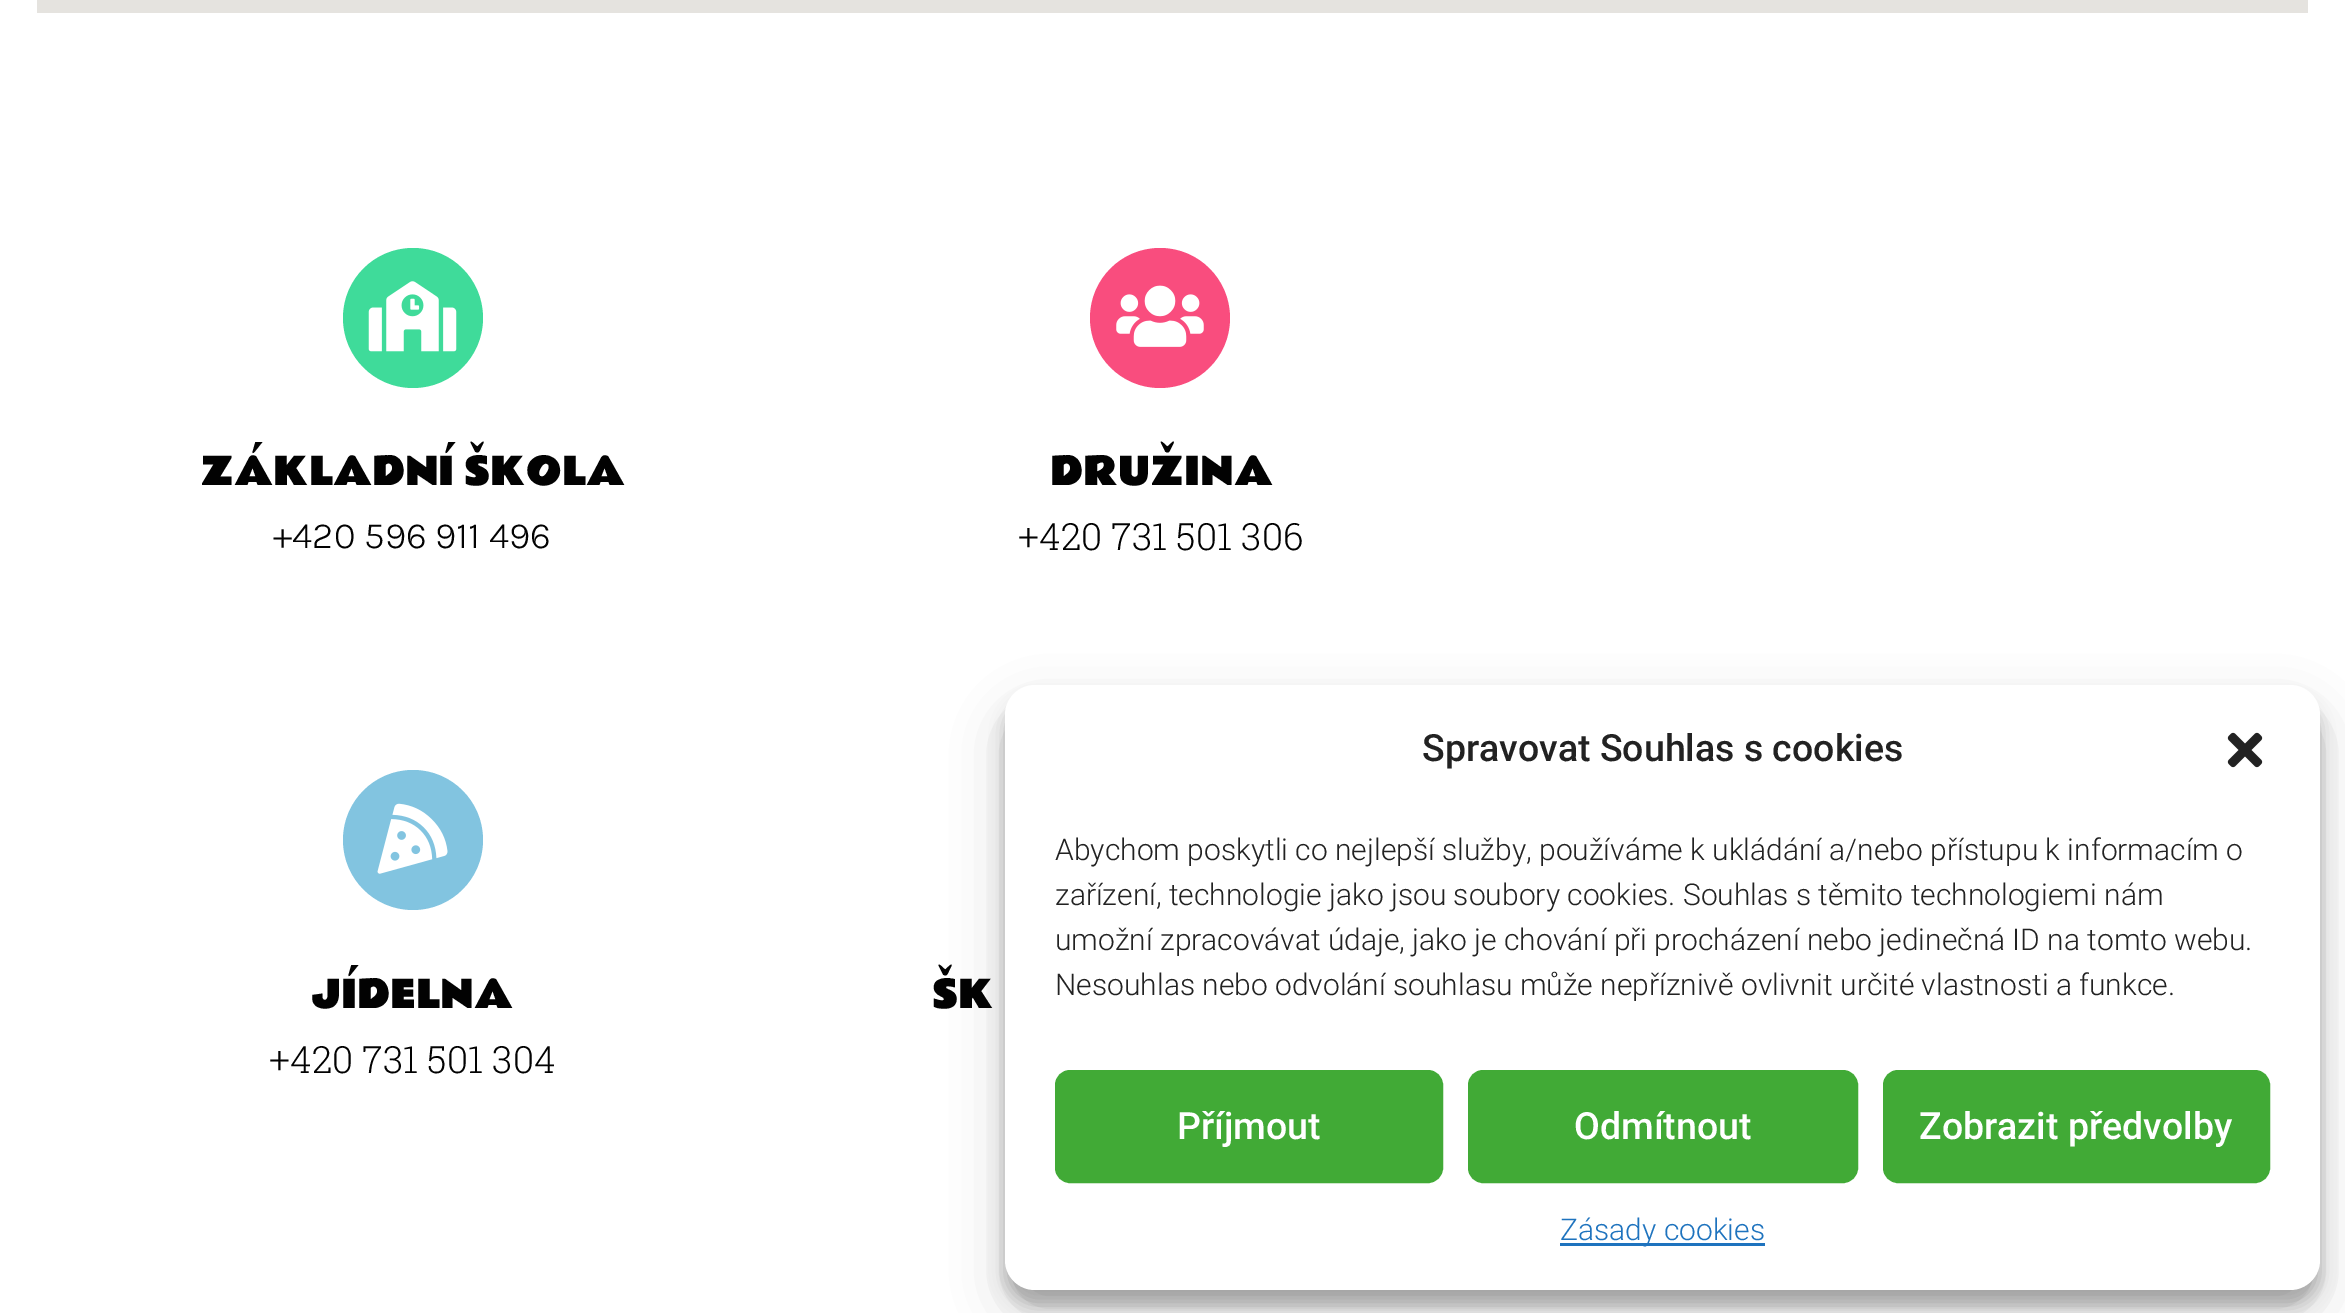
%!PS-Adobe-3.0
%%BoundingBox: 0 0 2345 1313
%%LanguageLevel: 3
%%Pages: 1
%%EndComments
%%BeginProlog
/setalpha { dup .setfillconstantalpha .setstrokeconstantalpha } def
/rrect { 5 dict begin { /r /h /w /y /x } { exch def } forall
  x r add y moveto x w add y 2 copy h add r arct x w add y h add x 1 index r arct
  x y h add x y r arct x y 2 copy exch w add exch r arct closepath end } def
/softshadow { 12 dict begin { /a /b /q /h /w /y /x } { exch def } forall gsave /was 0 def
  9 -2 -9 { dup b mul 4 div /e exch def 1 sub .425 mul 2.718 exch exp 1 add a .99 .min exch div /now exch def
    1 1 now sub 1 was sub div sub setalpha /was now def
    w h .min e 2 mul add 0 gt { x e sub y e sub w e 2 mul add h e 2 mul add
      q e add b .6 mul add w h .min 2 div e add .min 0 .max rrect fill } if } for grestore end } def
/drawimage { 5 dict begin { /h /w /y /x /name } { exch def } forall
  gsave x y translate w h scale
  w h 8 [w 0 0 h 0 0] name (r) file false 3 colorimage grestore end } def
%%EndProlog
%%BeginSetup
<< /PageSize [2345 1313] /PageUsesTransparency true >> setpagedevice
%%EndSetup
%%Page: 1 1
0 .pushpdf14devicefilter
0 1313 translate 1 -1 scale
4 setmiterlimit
1 setgray
0 0 2345 1313 rectfill
0.898 0.89 0.875 setrgbcolor
37 0 2271 13 rectfill
0.247 0.859 0.604 setrgbcolor
newpath 413 318 70 0 360 arc closepath fill
(images/1.raw) 368 281 89 71 drawimage
0.51 0.769 0.878 setrgbcolor
newpath 413 840 70 0 360 arc closepath fill
(images/2.raw) 377 803 71 71 drawimage
0.976 0.302 0.494 setrgbcolor
newpath 1160 318 70 0 360 arc closepath fill
(images/3.raw) 1116 285 88 62 drawimage
0 setgray
1005 700 1315 605 30 7.5 0.23 softshadow
1005 710 1315 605 30 25 0.19 softshadow
1 setgray
1005 685 1315 605 30 rrect fill
(images/4.raw) 2227 732 36 36 drawimage
0.255 0.667 0.212 setrgbcolor
1056.5 1071.5 385 110 13.5 rrect gsave fill grestore
3 setlinewidth
stroke
1469.5 1071.5 387 110 13.5 rrect gsave fill grestore
stroke
1884.5 1071.5 384 110 13.5 rrect gsave fill grestore
stroke
0.118 0.451 0.745 setrgbcolor
1560 1243 205 3 rectfill
/RammettoOne-Regular [37.5 0 0 -37.5 0 0] selectfont
0.008 setgray
200 485 moveto (ZÁKLADNÍ ŠKOLA) show
/Karla-Light [37.5 0 0 -37.5 0 0] selectfont
273 548 moveto (+420 596 911 496) show
/RammettoOne-Regular [37.5 0 0 -37.5 0 0] selectfont
312 1008 moveto (JÍDELNA) show
/RobotoSlab-Light [37.5 0 0 -37.5 0 0] selectfont
269 1073 moveto (+420 731 501 304) show
/RammettoOne-Regular [37.5 0 0 -37.5 0 0] selectfont
1050 485 moveto (DRUŽINA) show
/RobotoSlab-Light [37.5 0 0 -37.5 0 0] selectfont
1018 550 moveto (+420 731 501 306) show
/RammettoOne-Regular [37.5 0 0 -37.5 0 0] selectfont
932 1008 moveto (ŠK) show
/Roboto-Medium [37.5 0 0 -37.5 0 0] selectfont
0.133 setgray
1422 761 moveto (Spravovat Souhlas s cookies) show
/Roboto-Light [30 0 0 -30 0 0] selectfont
1055 860 moveto (Abychom poskytli co nejlepší služby, používáme k ukládání a/nebo přístupu k informacím o) show
1055 905 moveto (zařízení, technologie jako jsou soubory cookies. Souhlas s těmito technologiemi nám) show
1055 950 moveto (umožní zpracovávat údaje, jako je chování při procházení nebo jedinečná ID na tomto webu.) show
1055 995 moveto (Nesouhlas nebo odvolání souhlasu může nepříznivě ovlivnit určité vlastnosti a funkce.) show
/Roboto-Medium [37.5 0 0 -37.5 0 0] selectfont
1 setgray
1177 1139 moveto (Příjmout) show
1574 1139 moveto (Odmítnout) show
1919 1139 moveto (Zobrazit předvolby) show
/Roboto-Light [30 0 0 -30 0 0] selectfont
0.118 0.451 0.745 setrgbcolor
1560 1240 moveto (Zásady cookies) show
.poppdf14devicefilter showpage
%%EOF
